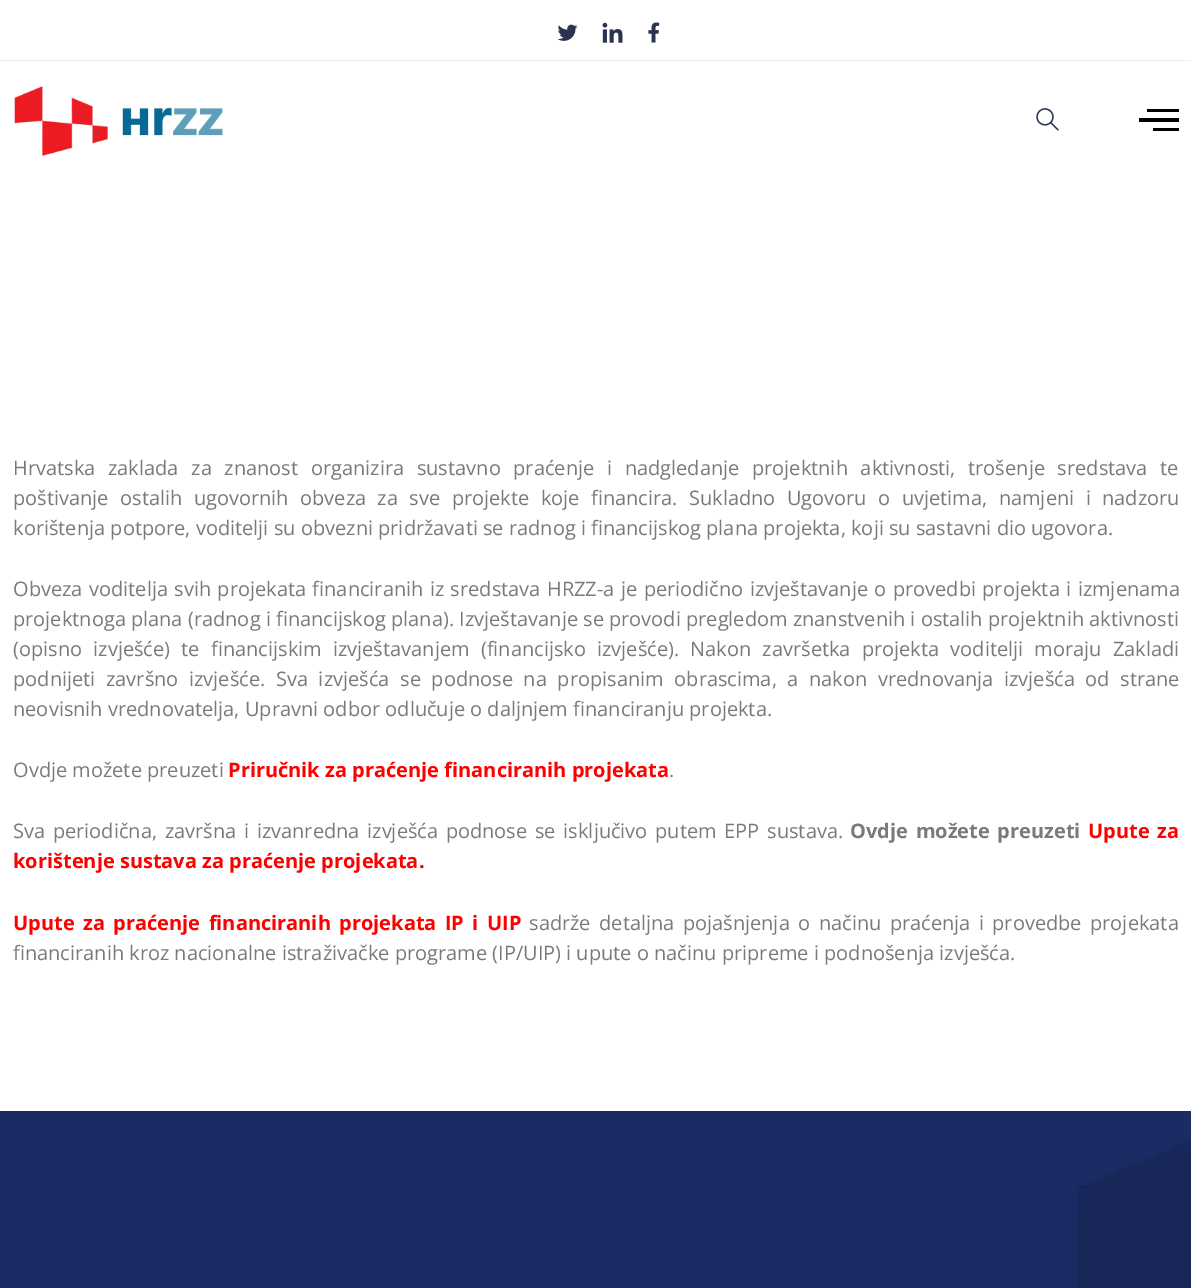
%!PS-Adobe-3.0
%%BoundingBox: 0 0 1191 1288
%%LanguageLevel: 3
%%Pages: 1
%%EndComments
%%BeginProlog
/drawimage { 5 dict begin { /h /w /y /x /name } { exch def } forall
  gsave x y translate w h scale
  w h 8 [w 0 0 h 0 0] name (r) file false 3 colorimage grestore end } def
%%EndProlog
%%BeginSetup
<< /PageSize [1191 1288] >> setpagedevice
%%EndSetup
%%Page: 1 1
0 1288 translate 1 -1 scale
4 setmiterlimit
1 setgray
0 0 1191 1288 rectfill
0.929 setgray
0 60 1191 1 rectfill
(images/1.raw) 557 24 21 17 drawimage
(images/2.raw) 602 22 21 21 drawimage
(images/3.raw) 648 22 12 21 drawimage
(images/4.raw) 14 86 209 70 drawimage
(images/5.raw) 1036 108 23 23 drawimage
0 setgray
newpath 1139 122 moveto 1179 122 lineto 1179 118 lineto 1139 118 lineto closepath 1153 131 moveto 1179 131 lineto 1179 128 lineto 1153 128 lineto closepath 1147 109 moveto 1147 112 lineto 1179 112 lineto 1179 109 lineto closepath fill
(images/6.raw) 0 1111 1191 177 drawimage
/OpenSans-Regular [20 0 0 -20 0 0] selectfont
0.478 setgray
13 475 moveto 7.5 0 32 (Hrvatska zaklada za znanost organizira sustavno praćenje i nadgledanje projektnih aktivnosti, trošenje sredstava te) widthshow
13 505 moveto 6.25 0 32 (poštivanje ostalih ugovornih obveza za sve projekte koje financira. Sukladno Ugovoru o uvjetima, namjeni i nadzoru) widthshow
13 535 moveto (korištenja potpore, voditelji su obvezni pridržavati se radnog i financijskog plana projekta, koji su sastavni dio ugovora.) show
13 596 moveto 1.2 0 32 (Obveza voditelja svih projekata financiranih iz sredstava HRZZ-a je periodično izvještavanje o provedbi projekta i izmjenama) widthshow
13 626 moveto (projektnoga plana \(radnog i financijskog plana\). Izvještavanje se provodi pregledom znanstvenih i ostalih projektnih aktivnosti) show
13 656 moveto 6 0 32 (\(opisno izvješće\) te financijskim izvještavanjem \(financijsko izvješće\). Nakon završetka projekta voditelji moraju Zakladi) widthshow
13 686 moveto 5.4 0 32 (podnijeti završno izvješće. Sva izvješća se podnose na propisanim obrascima, a nakon vrednovanja izvješća od strane) widthshow
13 716 moveto (neovisnih vrednovatelja, Upravni odbor odlučuje o daljnjem financiranju projekta.) show
13 777 moveto (Ovdje možete preuzeti) show
/OpenSans-Bold [20 0 0 -20 0 0] selectfont
1 0 0 setrgbcolor
228 777 moveto (Priručnik za praćenje financiranih projekata) show
/OpenSans-Regular [20 0 0 -20 0 0] selectfont
0.478 setgray
669 777 moveto (.) show
13 838 moveto 2.5 0 32 (Sva periodična, završna i izvanredna izvješća podnose se isključivo putem EPP sustava.) widthshow
/OpenSans-Bold [20 0 0 -20 0 0] selectfont
850 838 moveto 2.5 0 32 (Ovdje možete preuzeti) widthshow
1 0 0 setrgbcolor
1088 838 moveto 2.5 0 32 (Upute za) widthshow
13 868 moveto (korištenje sustava za praćenje projekata.) show
13 930 moveto 3.25 0 32 (Upute za praćenje financiranih projekata IP i UIP) widthshow
/OpenSans-Regular [20 0 0 -20 0 0] selectfont
0.478 setgray
529 930 moveto 3.25 0 32 (sadrže detaljna pojašnjenja o načinu praćenja i provedbe projekata) widthshow
13 960 moveto (financiranih kroz nacionalne istraživačke programe \(IP/UIP\) i upute o načinu pripreme i podnošenja izvješća.) show
showpage
%%EOF
